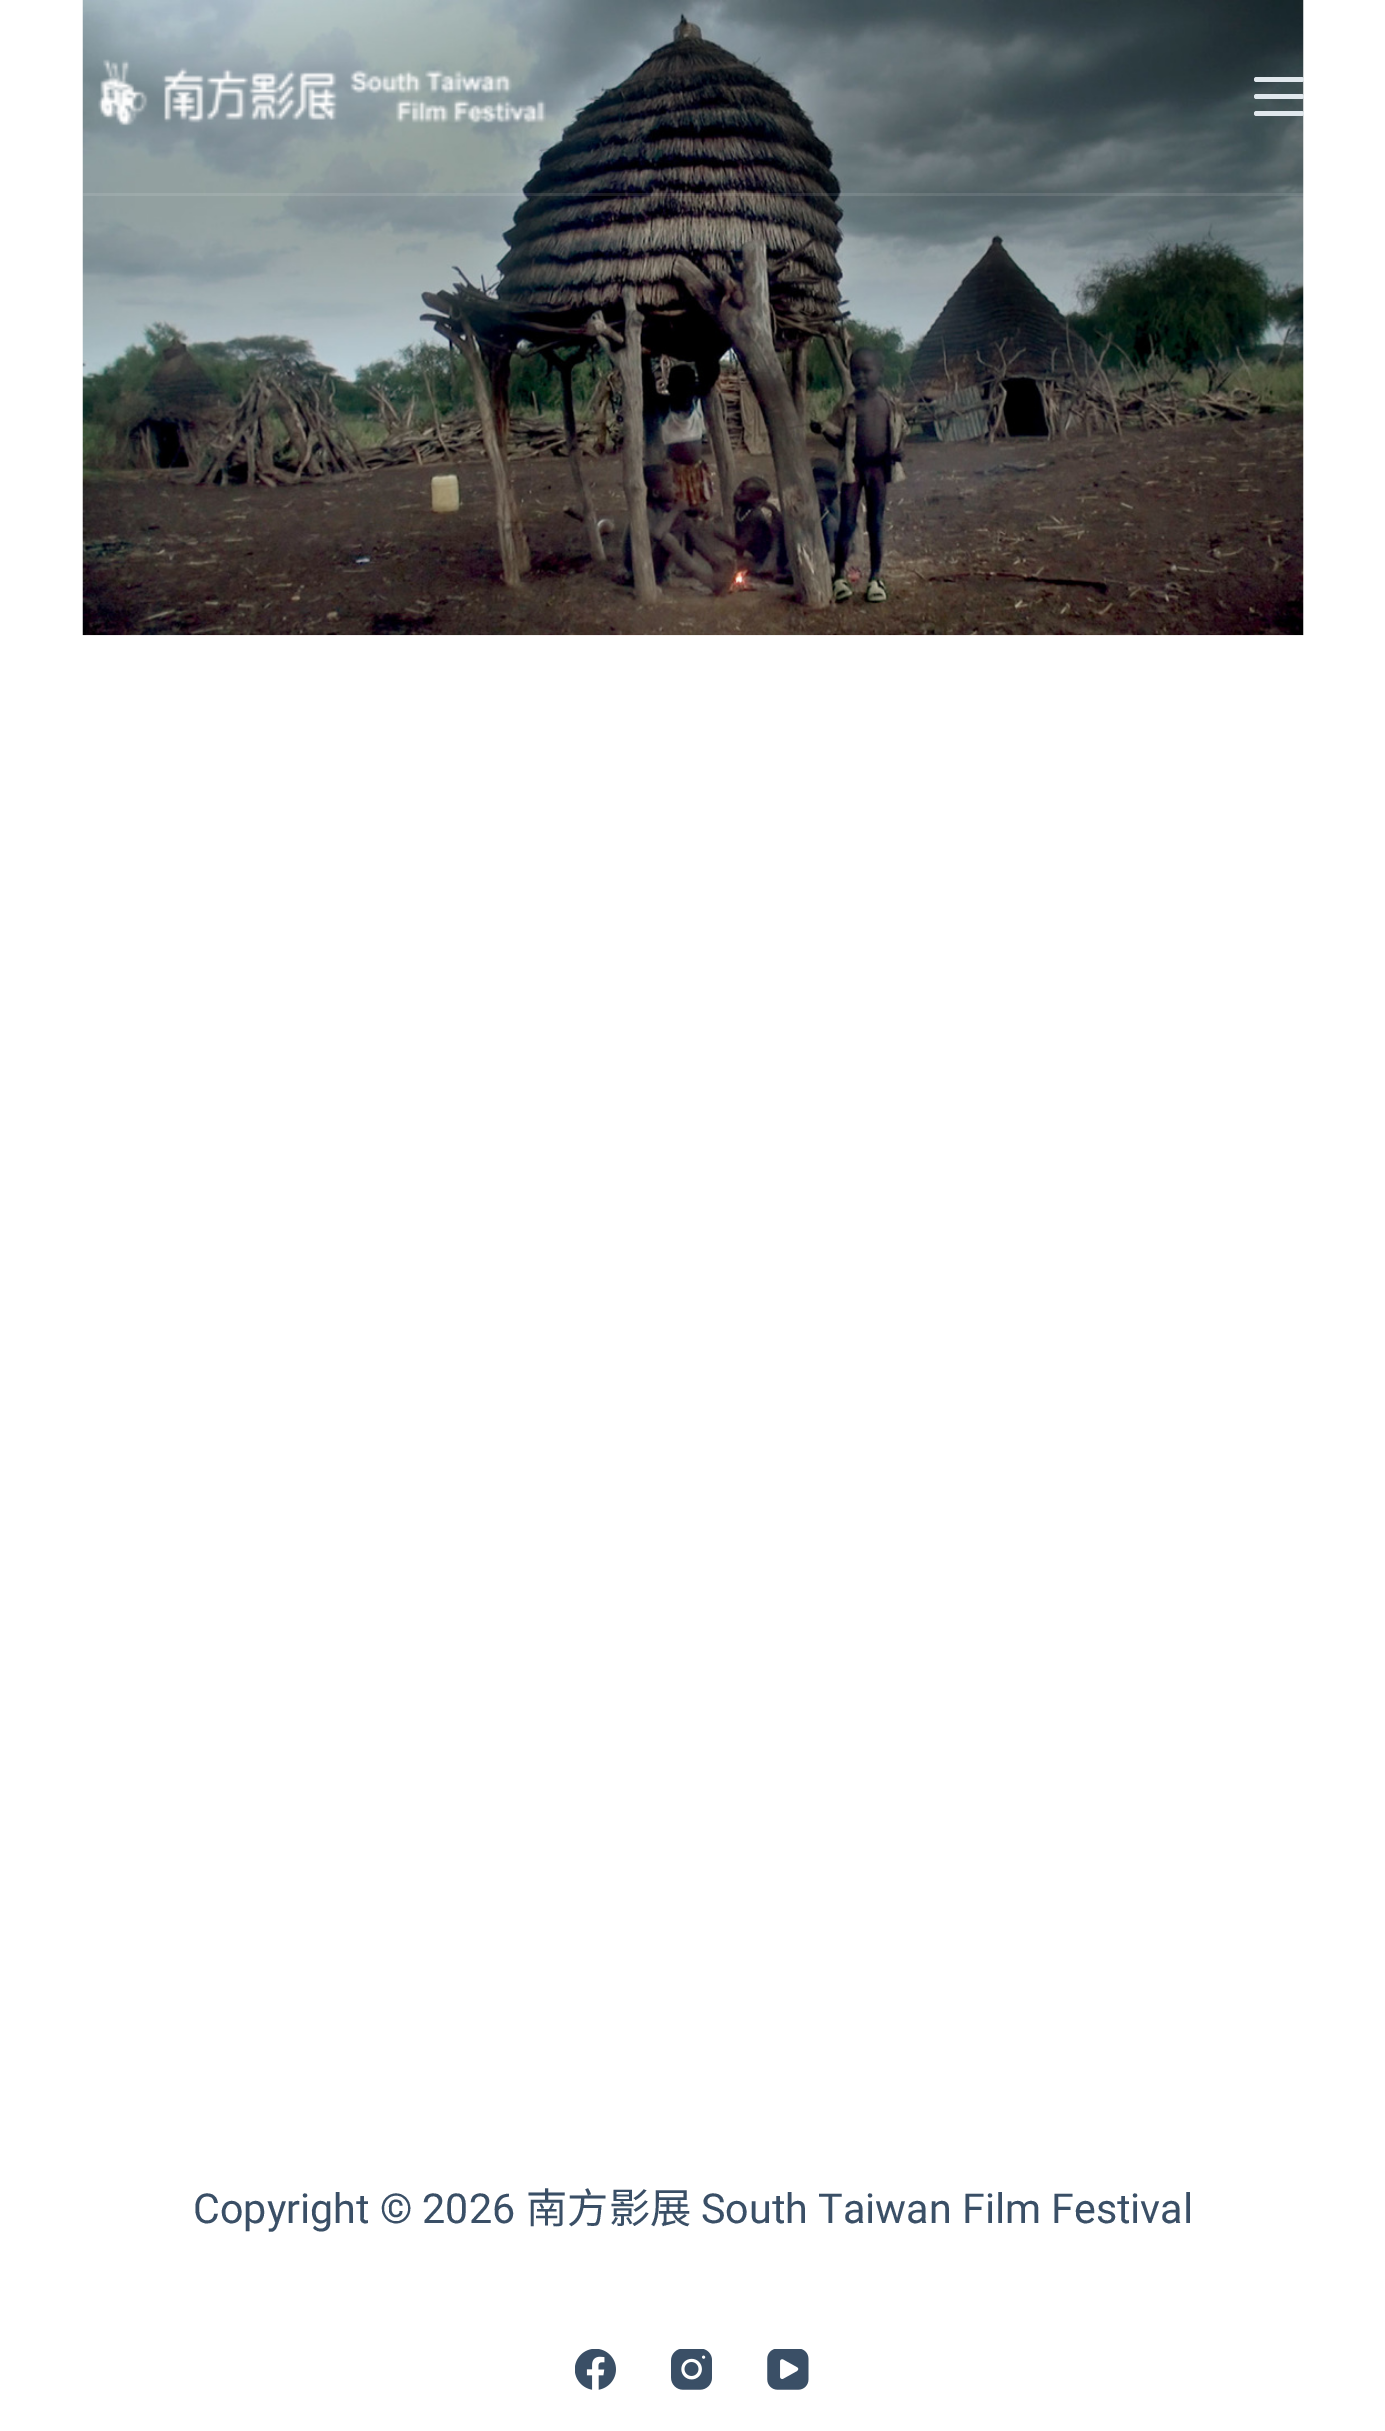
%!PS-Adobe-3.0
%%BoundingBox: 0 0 1385 2431
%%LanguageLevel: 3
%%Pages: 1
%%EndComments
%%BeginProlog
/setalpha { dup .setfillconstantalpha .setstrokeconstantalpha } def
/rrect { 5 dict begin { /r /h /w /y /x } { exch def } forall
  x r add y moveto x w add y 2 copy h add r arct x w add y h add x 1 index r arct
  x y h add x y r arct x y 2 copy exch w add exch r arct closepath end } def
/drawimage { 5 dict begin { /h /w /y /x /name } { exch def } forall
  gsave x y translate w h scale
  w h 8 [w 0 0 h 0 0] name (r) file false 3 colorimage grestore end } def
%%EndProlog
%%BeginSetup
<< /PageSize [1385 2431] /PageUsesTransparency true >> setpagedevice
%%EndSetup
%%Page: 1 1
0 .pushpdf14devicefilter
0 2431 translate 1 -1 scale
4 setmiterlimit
1 setgray
0 0 1385 2431 rectfill
(images/1.raw) 82 0 1222 636 drawimage
0.1 setalpha
83 193 1221 3 rectfill
1 setalpha
(images/2.raw) 98 59 448 67 drawimage
0.882 0.91 0.929 setrgbcolor
1254 77 50 5 2.5 rrect fill
1254 94 50 5 2.5 rrect fill
1254 111 50 5 2.5 rrect fill
(images/3.raw) 575 2349 41 41 drawimage
(images/4.raw) 671 2349 41 41 drawimage
(images/5.raw) 767 2349 42 41 drawimage
/Roboto-Regular [41.25 0 0 -41.25 0 0] selectfont
0.227 0.31 0.4 setrgbcolor
193 2223 moveto (Copyright © 2026) show
/NotoSansCJKTC-Regular [41.25 0 0 -41.25 0 0] selectfont
526 2223 moveto (南方影展) show
/Roboto-Regular [41.25 0 0 -41.25 0 0] selectfont
701 2223 moveto (South Taiwan Film Festival) show
.poppdf14devicefilter showpage
%%EOF
